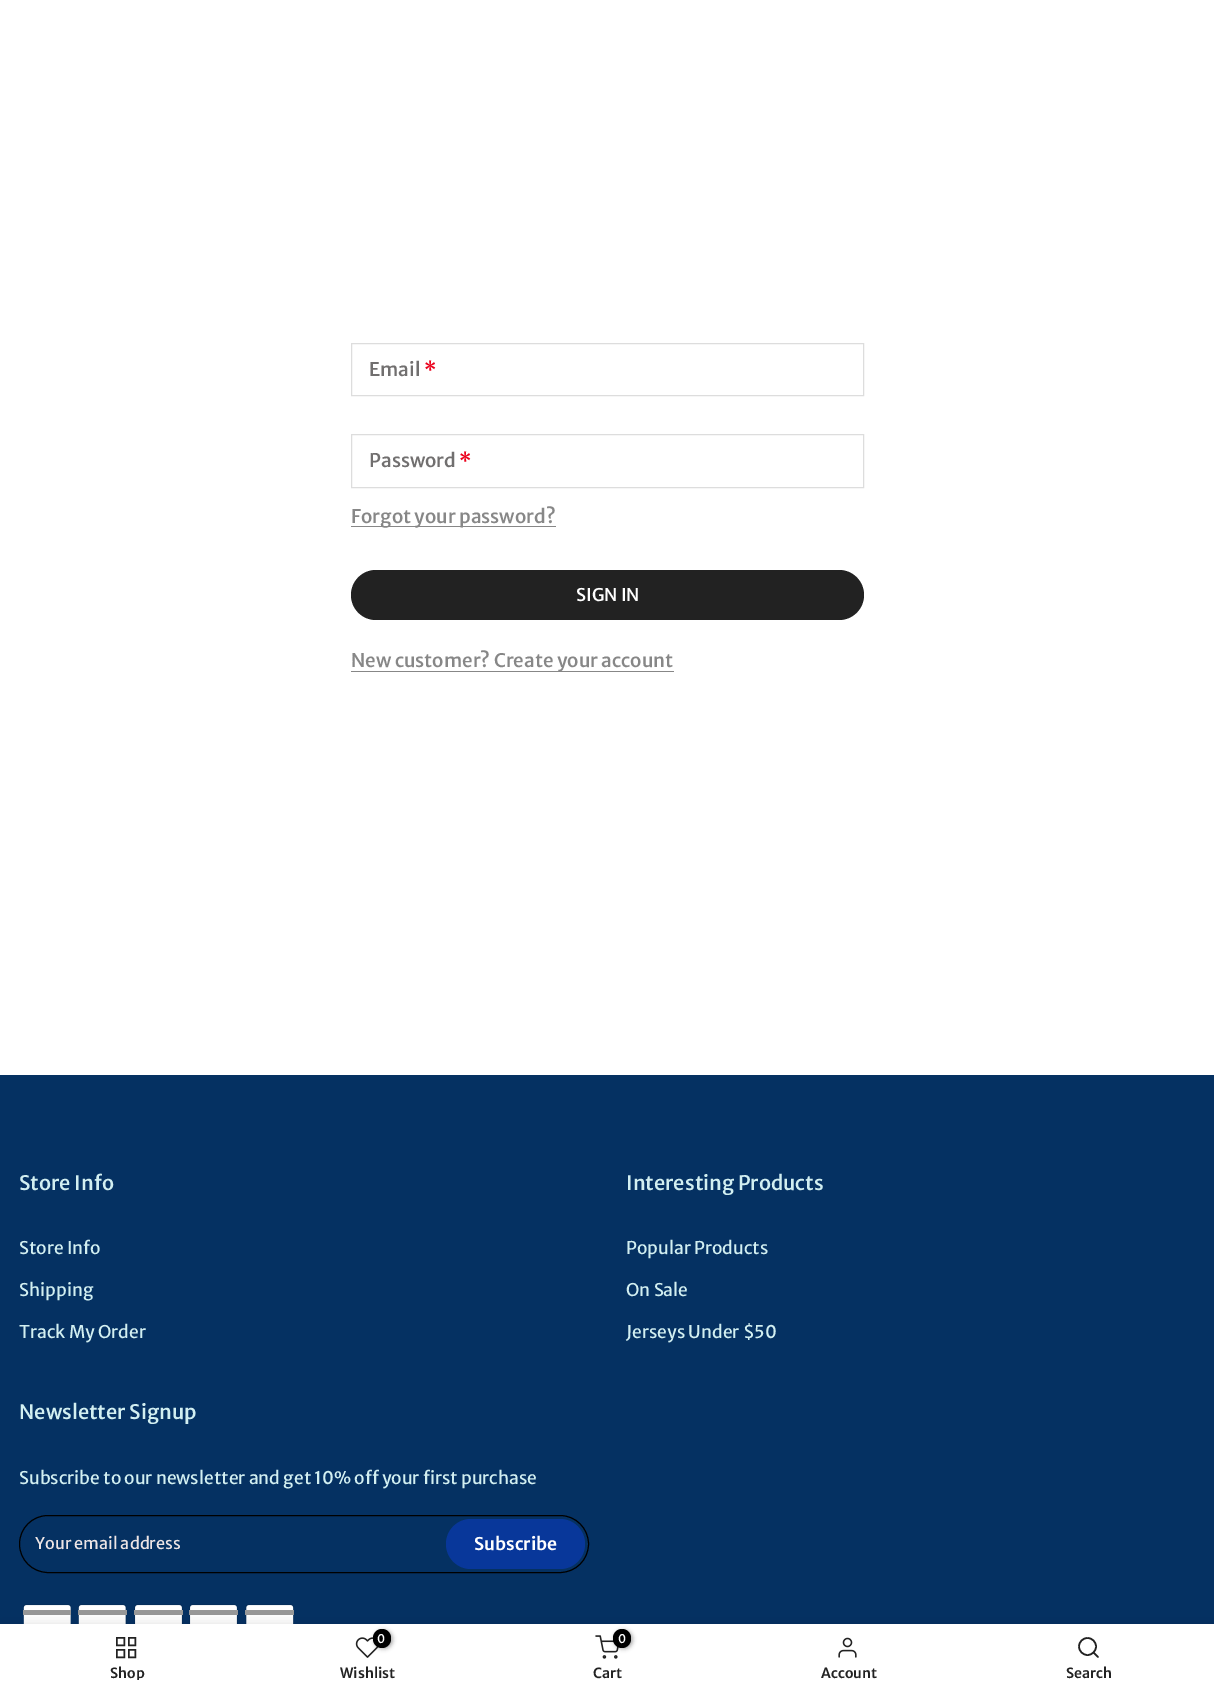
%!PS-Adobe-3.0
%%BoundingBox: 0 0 1214 1692
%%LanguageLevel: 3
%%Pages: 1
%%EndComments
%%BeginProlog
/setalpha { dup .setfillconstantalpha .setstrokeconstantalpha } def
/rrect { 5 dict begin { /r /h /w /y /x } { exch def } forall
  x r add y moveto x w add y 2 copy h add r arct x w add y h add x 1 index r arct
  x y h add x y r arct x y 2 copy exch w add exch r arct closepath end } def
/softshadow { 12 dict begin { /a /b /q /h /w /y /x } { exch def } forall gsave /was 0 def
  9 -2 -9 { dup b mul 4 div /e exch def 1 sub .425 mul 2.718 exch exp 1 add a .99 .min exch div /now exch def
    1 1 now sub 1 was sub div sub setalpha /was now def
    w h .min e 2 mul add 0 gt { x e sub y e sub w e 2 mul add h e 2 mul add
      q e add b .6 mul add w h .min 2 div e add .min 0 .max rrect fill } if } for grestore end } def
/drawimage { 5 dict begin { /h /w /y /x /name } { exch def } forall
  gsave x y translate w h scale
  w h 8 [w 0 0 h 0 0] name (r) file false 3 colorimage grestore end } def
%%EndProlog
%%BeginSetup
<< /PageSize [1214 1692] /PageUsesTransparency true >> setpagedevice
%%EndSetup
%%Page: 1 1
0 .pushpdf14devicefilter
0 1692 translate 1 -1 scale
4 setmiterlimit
1 setgray
0 0 1214 1692 rectfill
0.867 setgray
351.5 343.5 512 52 rectstroke
351.5 434.5 512 53 rectstroke
0.529 setgray
351 526 205 1 rectfill
0.133 setgray
351 570 513 50 25 rrect fill
0.529 setgray
351 671 323 1 rectfill
0.02 0.192 0.384 setrgbcolor
0 1075 1214 549 rectfill
0 setgray
19.5 1515.5 569 57 28.5 rrect stroke
0.031 0.216 0.604 setrgbcolor
446 1519 139 50 25 rrect fill
(images/1.raw) 23 1604 48 20 drawimage
(images/2.raw) 78 1604 49 20 drawimage
(images/3.raw) 134 1604 49 20 drawimage
(images/3.raw) 189 1604 49 20 drawimage
(images/4.raw) 245 1604 49 20 drawimage
0 setgray
0 1624 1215 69 0 5.5 0.12 softshadow
1 setgray
0 1624 1214 68 rectfill
0.133 setgray
1.5 setlinewidth
116.75 1637.75 7.5 7.5 rectstroke
128.75 1637.75 6.5 7.5 rectstroke
116.75 1649.75 7.5 7.5 rectstroke
128.75 1649.75 6.5 7.5 rectstroke
(images/5.raw) 355 1637 24 21 drawimage
0 setgray
374 1630 19 19 9.5 2 0.3 softshadow
373 1629 18 19 9 rrect fill
(images/6.raw) 595 1635 24 24 drawimage
614 1630 19 19 9.5 2 0.3 softshadow
613 1629 18 19 9 rrect fill
(images/7.raw) 838 1637 19 21 drawimage
0.133 setgray
1.6 setlinewidth
newpath 1087.5 1646.5 8.5 0 360 arc closepath stroke
1 setlinecap
1 setlinejoin
newpath 1098 1657 moveto 1093.5 1652.5 lineto stroke
/MerriweatherSans-Medium [18.75 0 0 -18.75 0 0] selectfont
0.443 0.435 0.435 setrgbcolor
369 376 moveto (Email) show
/MerriweatherSans-Medium [20 0 0 -20 0 0] selectfont
0.922 0 0.106 setrgbcolor
424 377 moveto (*) show
/MerriweatherSans-Medium [18.75 0 0 -18.75 0 0] selectfont
0.443 0.435 0.435 setrgbcolor
369 467 moveto (Password) show
/MerriweatherSans-Medium [20 0 0 -20 0 0] selectfont
0.922 0 0.106 setrgbcolor
459 468 moveto (*) show
/MerriweatherSans-Medium [18.75 0 0 -18.75 0 0] selectfont
0.529 setgray
351 523 moveto (Forgot your password?) show
/MerriweatherSans-Medium [17.5 0 0 -17.5 0 0] selectfont
1 setgray
576 601 moveto (SIGN IN) show
/MerriweatherSans-Medium [18.75 0 0 -18.75 0 0] selectfont
0.529 setgray
351 667 moveto (New customer? Create your account) show
/MerriweatherSans-Medium [20 0 0 -20 0 0] selectfont
0.824 0.937 0.945 setrgbcolor
19 1190 moveto (Store Info) show
/MerriweatherSans-Regular [17.5 0 0 -17.5 0 0] selectfont
19 1254 moveto (Store Info) show
19 1296 moveto (Shipping) show
19 1338 moveto (Track My Order) show
/MerriweatherSans-Medium [20 0 0 -20 0 0] selectfont
626 1190 moveto (Interesting Products) show
/MerriweatherSans-Regular [17.5 0 0 -17.5 0 0] selectfont
626 1254 moveto (Popular Products) show
626 1296 moveto (On Sale) show
626 1338 moveto (Jerseys Under $50) show
/MerriweatherSans-Medium [20 0 0 -20 0 0] selectfont
19 1419 moveto (Newsletter Signup) show
/MerriweatherSans-Regular [17.5 0 0 -17.5 0 0] selectfont
19 1484 moveto (Subscribe to our newsletter and get 10% off your first purchase) show
/MerriweatherSans-Regular [16.25 0 0 -16.25 0 0] selectfont
0.929 0.898 0.898 setrgbcolor
35 1549 moveto (Your email address) show
/MerriweatherSans-SemiBold [17.5 0 0 -17.5 0 0] selectfont
1 setgray
474 1550 moveto (Subscribe) show
gsave
19 1666 215 14 rectclip
/MerriweatherSans-SemiBold [14 0 0 -14 0 0] selectfont
0.133 setgray
110 1678 moveto (Shop) show
grestore
/MerriweatherSans-Regular [12 0 0 -12 0 0] selectfont
377 1643 moveto (0) show
/MerriweatherSans-SemiBold [14 0 0 -14 0 0] selectfont
0.133 setgray
340 1678 moveto (Wishlist) show
/MerriweatherSans-Regular [12 0 0 -12 0 0] selectfont
1 setgray
618 1643 moveto (0) show
/MerriweatherSans-SemiBold [14 0 0 -14 0 0] selectfont
0.133 setgray
593 1678 moveto (Cart) show
821 1678 moveto (Account) show
1066 1678 moveto (Search) show
.poppdf14devicefilter showpage
%%EOF
